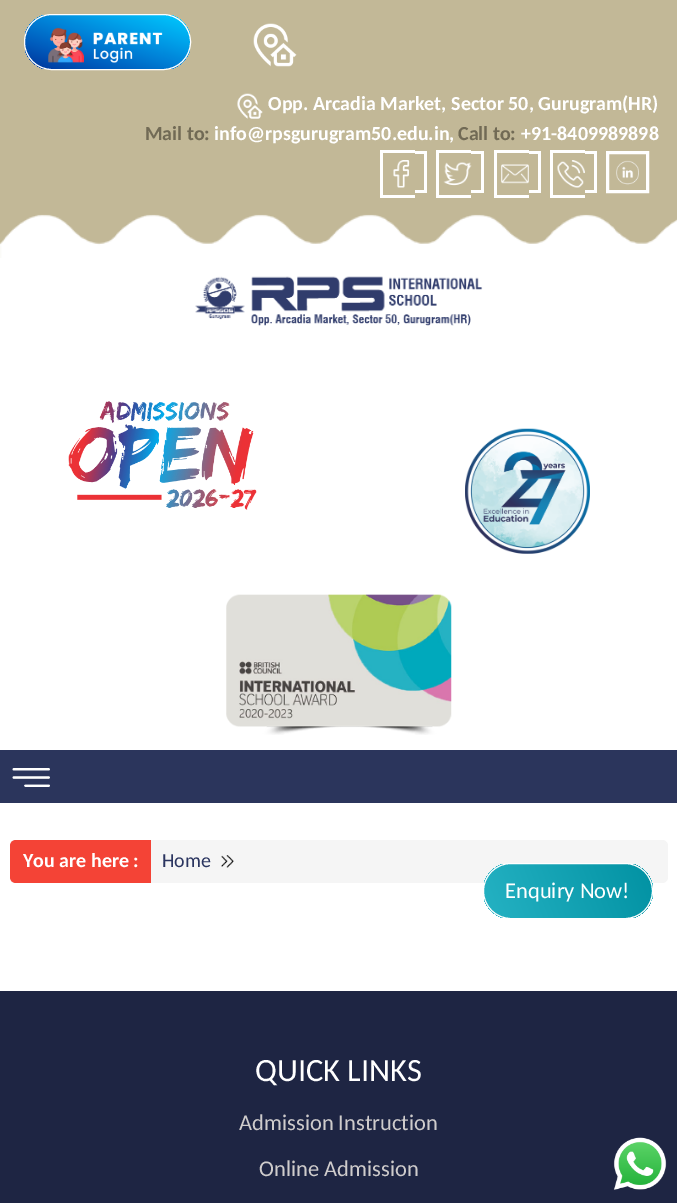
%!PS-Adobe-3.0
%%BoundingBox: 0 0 677 1203
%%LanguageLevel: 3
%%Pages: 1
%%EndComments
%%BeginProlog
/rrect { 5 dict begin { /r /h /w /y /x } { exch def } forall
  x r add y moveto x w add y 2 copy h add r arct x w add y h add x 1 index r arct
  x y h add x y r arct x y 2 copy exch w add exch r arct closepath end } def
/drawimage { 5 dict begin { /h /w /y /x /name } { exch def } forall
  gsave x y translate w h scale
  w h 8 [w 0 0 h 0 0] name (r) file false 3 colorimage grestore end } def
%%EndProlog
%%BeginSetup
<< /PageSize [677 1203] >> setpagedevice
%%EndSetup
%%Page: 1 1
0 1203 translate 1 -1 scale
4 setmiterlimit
1 setgray
0 0 677 1203 rectfill
0.761 0.722 0.592 setrgbcolor
0 0 677 214 rectfill
gsave
24 14 167 56 28 rrect clip newpath
gsave newpath 25 15 moveto 190 15 lineto 190 69 lineto 25 69 lineto closepath clip newpath
<< /ShadingType 2 /ColorSpace /DeviceRGB /Coords [92 90 123 -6.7] /Extend [true true] /Function << /FunctionType 3 /Domain [0 1] /Functions [<< /FunctionType 2 /Domain [0 1] /C0 [0 0.2 0.6] /C1 [0 0.357 0.737] /N 1 >> << /FunctionType 2 /Domain [0 1] /C0 [0 0.357 0.737] /C1 [0 0.506 0.843] /N 1 >> << /FunctionType 2 /Domain [0 1] /C0 [0 0.506 0.843] /C1 [0 0.655 0.929] /N 1 >> << /FunctionType 2 /Domain [0 1] /C0 [0 0.655 0.929] /C1 [0 0.8 1] /N 1 >>] /Bounds [0.25 0.5 0.75] /Encode [0 1 0 1 0 1 0 1] >> >> shfill grestore
grestore
1 setgray
24.5 14.5 166 55 27.5 rrect stroke
(images/1.raw) 48 27 115 36 drawimage
(images/2.raw) 253 23 44 44 drawimage
(images/3.raw) 237 93 26 26 drawimage
380 150 35 3 rectfill
380 195 35 3 rectfill
380 150 3 48 rectfill
436 150 35 3 rectfill
436 195 35 3 rectfill
436 150 3 48 rectfill
494 150 35 3 rectfill
494 195 35 3 rectfill
494 150 3 48 rectfill
550 150 35 3 rectfill
415 151 11 3 rectfill
550 195 35 3 rectfill
550 150 3 48 rectfill
424 151 3 42 rectfill
471 151 13 3 rectfill
481 151 3 42 rectfill
529 151 11 3 rectfill
538 151 3 42 rectfill
585 151 11 3 rectfill
(images/4.raw) 393 160 17 28 drawimage
(images/5.raw) 557 160 28 28 drawimage
594 151 3 42 rectfill
3 setlinewidth
607.5 152.5 40 39 rectstroke
(images/6.raw) 443 162 29 24 drawimage
(images/7.raw) 501 164 28 20 drawimage
(images/8.raw) 616 160 23 25 drawimage
415 190 11 3 rectfill
471 190 13 3 rectfill
529 190 11 3 rectfill
585 190 11 3 rectfill
(images/9.raw) 0 214 677 44 drawimage
(images/10.raw) 195 276 288 50 drawimage
(images/11.raw) 68 401 189 109 drawimage
(images/12.raw) 465 428 125 126 drawimage
(images/13.raw) 226 594 226 141 drawimage
0.169 0.208 0.361 setrgbcolor
0 750 677 53 rectfill
(images/14.raw) 12 768 38 19 drawimage
0.961 setgray
10 840 658 43 6 rrect fill
0.957 0.263 0.212 setrgbcolor
newpath 16 840 moveto 151 840 lineto 151 883 lineto 16 883 lineto 12.5 883 10 880.5 10 877 curveto 10 846 lineto 10 842.5 12.5 840 16 840 curveto closepath fill
(images/15.raw) 221 855 13 13 drawimage
gsave
483 863 170 56 28 rrect clip newpath
gsave newpath 484 864 moveto 651 864 lineto 651 918 lineto 484 918 lineto closepath clip newpath
<< /ShadingType 2 /ColorSpace /DeviceRGB /Coords [486 922 649 859] /Extend [true true] /Function << /FunctionType 2 /Domain [0 1] /C0 [0.145 0.698 0.765] /C1 [0.008 0.573 0.639] /N 1 >> >> shfill grestore
gsave newpath 651 880 moveto 653 880 lineto 653 901 lineto 651 901 lineto closepath clip newpath
<< /ShadingType 2 /ColorSpace /DeviceRGB /Coords [653 922 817 859] /Extend [true true] /Function << /FunctionType 2 /Domain [0 1] /C0 [0.145 0.698 0.765] /C1 [0.008 0.573 0.639] /N 1 >> >> shfill grestore
grestore
1 setgray
1 setlinewidth
483.5 863.5 169 55 27.5 rrect stroke
gsave newpath 0 991 moveto 677 991 lineto 677 1203 lineto 0 1203 lineto closepath clip newpath
<< /ShadingType 2 /ColorSpace /DeviceRGB /Coords [339 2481 339 991] /Extend [true true] /Function << /FunctionType 2 /Domain [0 1] /C0 [0.118 0.145 0.267] /C1 [0.118 0.145 0.263] /N 1 >> >> shfill grestore
(images/16.raw) 613 1137 54 53 drawimage
/Carlito-Bold [20 0 0 -20 0 0] selectfont
268 110 moveto (Opp. Arcadia Market, Sector 50, Gurugram\(HR\)) show
0.443 0.416 0.333 setrgbcolor
145 140 moveto (Mail to:) show
1 setgray
214 140 moveto (info@rpsgurugram50.edu.in,) show
0.443 0.416 0.333 setrgbcolor
458 140 moveto (Call to:) show
1 setgray
521 140 moveto (+91-8409989898) show
23 867 moveto (You are here :) show
/Carlito-Regular [20 0 0 -20 0 0] selectfont
0.169 0.208 0.376 setrgbcolor
162 867 moveto (Home) show
/Carlito-Regular [22.5 0 0 -22.5 0 0] selectfont
1 setgray
505 898 moveto (Enquiry Now!) show
/Carlito-Regular [32.5 0 0 -32.5 0 0] selectfont
255 1081 moveto (QUICK LINKS) show
/Carlito-Regular [22.5 0 0 -22.5 0 0] selectfont
0.812 0.8 0.8 setrgbcolor
239 1130 moveto (Admission Instruction) show
259 1176 moveto (Online Admission) show
showpage
%%EOF
